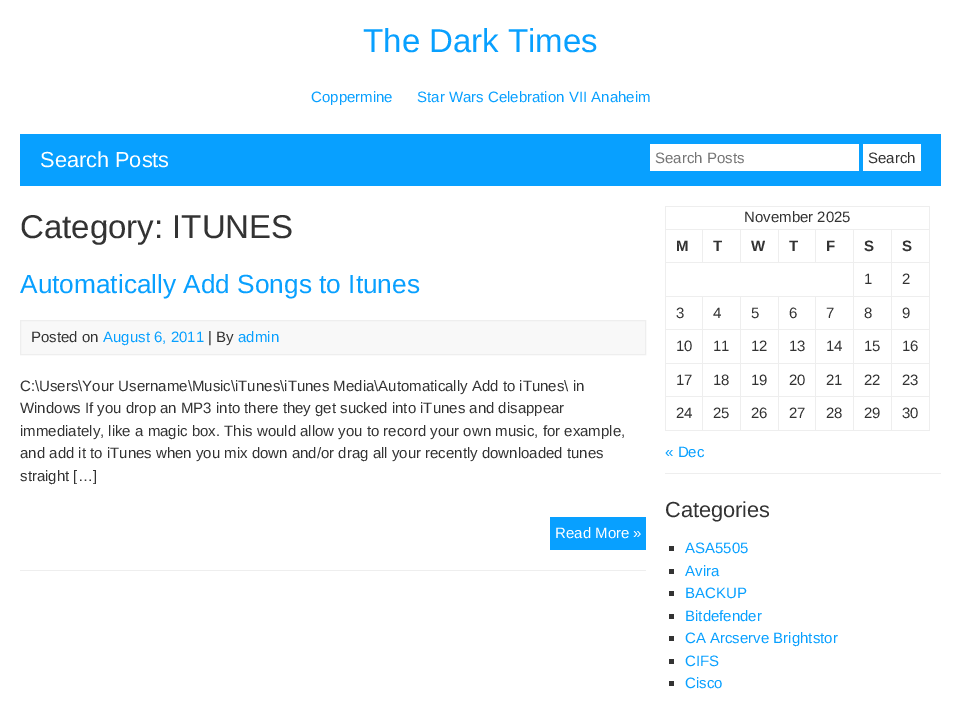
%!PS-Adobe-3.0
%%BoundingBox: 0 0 961 704
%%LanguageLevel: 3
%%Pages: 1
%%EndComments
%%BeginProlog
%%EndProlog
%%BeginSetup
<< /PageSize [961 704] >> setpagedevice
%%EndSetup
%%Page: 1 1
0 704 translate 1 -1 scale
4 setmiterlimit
1 setgray
0 0 961 704 rectfill
0.031 0.627 1 setrgbcolor
20 134 921 52 rectfill
1 setgray
650 144 209 27 rectfill
863 144 58 27 rectfill
0.933 setgray
20 570 626 1 rectfill
0.973 setgray
newpath 20.5 320.5 moveto 645.5 320.5 lineto 645.5 354.5 lineto 20.5 354.5 lineto closepath gsave fill grestore
0.933 setgray
stroke
0.031 0.627 1 setrgbcolor
550 517 96 33 rectfill
0.933 setgray
665 473 276 1 rectfill
665 206 265 1 rectfill
929 206 1 225 rectfill
665 430 265 1 rectfill
665 206 1 225 rectfill
891 229 39 1 rectfill
891 262 39 1 rectfill
891 296 39 1 rectfill
891 329 39 1 rectfill
891 363 39 1 rectfill
891 396 39 1 rectfill
891 396 1 35 rectfill
853 396 39 1 rectfill
891 363 1 34 rectfill
853 363 39 1 rectfill
891 329 1 35 rectfill
853 329 39 1 rectfill
891 296 1 34 rectfill
853 296 39 1 rectfill
891 262 1 35 rectfill
853 262 39 1 rectfill
891 229 1 34 rectfill
853 229 39 1 rectfill
853 396 1 35 rectfill
815 396 39 1 rectfill
853 363 1 34 rectfill
815 363 39 1 rectfill
853 329 1 35 rectfill
815 329 39 1 rectfill
853 296 1 34 rectfill
815 296 39 1 rectfill
853 262 1 35 rectfill
665 262 189 1 rectfill
853 229 1 34 rectfill
815 229 39 1 rectfill
815 229 1 34 rectfill
778 229 38 1 rectfill
778 229 1 34 rectfill
740 229 39 1 rectfill
740 229 1 34 rectfill
702 229 39 1 rectfill
702 229 1 34 rectfill
665 229 38 1 rectfill
815 396 1 35 rectfill
778 396 38 1 rectfill
815 363 1 34 rectfill
778 363 38 1 rectfill
815 329 1 35 rectfill
778 329 38 1 rectfill
815 296 1 34 rectfill
778 296 38 1 rectfill
778 396 1 35 rectfill
740 396 39 1 rectfill
778 363 1 34 rectfill
740 363 39 1 rectfill
778 329 1 35 rectfill
740 329 39 1 rectfill
778 296 1 34 rectfill
740 296 39 1 rectfill
740 396 1 35 rectfill
702 396 39 1 rectfill
740 363 1 34 rectfill
702 363 39 1 rectfill
740 329 1 35 rectfill
702 329 39 1 rectfill
740 296 1 34 rectfill
702 296 39 1 rectfill
702 396 1 35 rectfill
665 396 38 1 rectfill
702 363 1 34 rectfill
665 363 38 1 rectfill
702 329 1 35 rectfill
665 329 38 1 rectfill
702 296 1 34 rectfill
665 296 38 1 rectfill
0.2 setgray
669 546 5 5 rectfill
669 569 5 5 rectfill
669 591 5 5 rectfill
669 614 5 5 rectfill
669 636 5 5 rectfill
669 659 5 5 rectfill
669 681 5 5 rectfill
/LiberationSans-Regular [33 0 0 -33 0 0] selectfont
0.031 0.627 1 setrgbcolor
363 52 moveto (The Dark Times) show
/LiberationSans-Regular [15 0 0 -15 0 0] selectfont
311 102 moveto (Coppermine) show
417 102 moveto (Star Wars Celebration VII Anaheim) show
/LiberationSans-Regular [21.75 0 0 -21.75 0 0] selectfont
1 setgray
40 167 moveto (Search Posts) show
/LiberationSans-Regular [15 0 0 -15 0 0] selectfont
0.459 setgray
655 163 moveto (Search Posts) show
0.2 setgray
868 163 moveto (Search) show
/LiberationSans-Regular [33 0 0 -33 0 0] selectfont
20 238 moveto (Category: ITUNES) show
/LiberationSans-Regular [26.25 0 0 -26.25 0 0] selectfont
0.031 0.627 1 setrgbcolor
20 293 moveto (Automatically Add Songs to Itunes) show
/LiberationSans-Regular [15 0 0 -15 0 0] selectfont
0.2 setgray
31 342 moveto (Posted on) show
0.031 0.627 1 setrgbcolor
103 342 moveto (August 6, 2011) show
0.2 setgray
208 342 moveto (| By) show
0.031 0.627 1 setrgbcolor
238 342 moveto (admin) show
0.2 setgray
20 391 moveto (C:\\Users\\Your Username\\Music\\iTunes\\iTunes Media\\Automatically Add to iTunes\\ in) show
20 413 moveto (Windows If you drop an MP3 into there they get sucked into iTunes and disappear) show
20 436 moveto (immediately, like a magic box. This would allow you to record your own music, for example,) show
20 458 moveto (and add it to iTunes when you mix down and/or drag all your recently downloaded tunes) show
20 481 moveto (straight […]) show
1 setgray
555 538 moveto (Read More ») show
0.2 setgray
744 222 moveto (November 2025) show
/LiberationSans-Bold [15 0 0 -15 0 0] selectfont
676 251 moveto (M) show
713 251 moveto (T) show
751 251 moveto (W) show
789 251 moveto (T) show
826 251 moveto (F) show
864 251 moveto (S) show
902 251 moveto (S) show
/LiberationSans-Regular [15 0 0 -15 0 0] selectfont
864 284 moveto (1) show
902 284 moveto (2) show
676 318 moveto (3) show
713 318 moveto (4) show
751 318 moveto (5) show
789 318 moveto (6) show
826 318 moveto (7) show
864 318 moveto (8) show
902 318 moveto (9) show
676 351 moveto (10) show
713 351 moveto (11) show
751 351 moveto (12) show
789 351 moveto (13) show
826 351 moveto (14) show
864 351 moveto (15) show
902 351 moveto (16) show
676 385 moveto (17) show
713 385 moveto (18) show
751 385 moveto (19) show
789 385 moveto (20) show
826 385 moveto (21) show
864 385 moveto (22) show
902 385 moveto (23) show
676 418 moveto (24) show
713 418 moveto (25) show
751 418 moveto (26) show
789 418 moveto (27) show
826 418 moveto (28) show
864 418 moveto (29) show
902 418 moveto (30) show
0.031 0.627 1 setrgbcolor
665 457 moveto (« Dec) show
/LiberationSans-Regular [21.75 0 0 -21.75 0 0] selectfont
0.2 setgray
665 517 moveto (Categories) show
/LiberationSans-Regular [15 0 0 -15 0 0] selectfont
0.031 0.627 1 setrgbcolor
685 553 moveto (ASA5505) show
685 576 moveto (Avira) show
685 598 moveto (BACKUP) show
685 621 moveto (Bitdefender) show
685 643 moveto (CA Arcserve Brightstor) show
685 666 moveto (CIFS) show
685 688 moveto (Cisco) show
showpage
%%EOF
